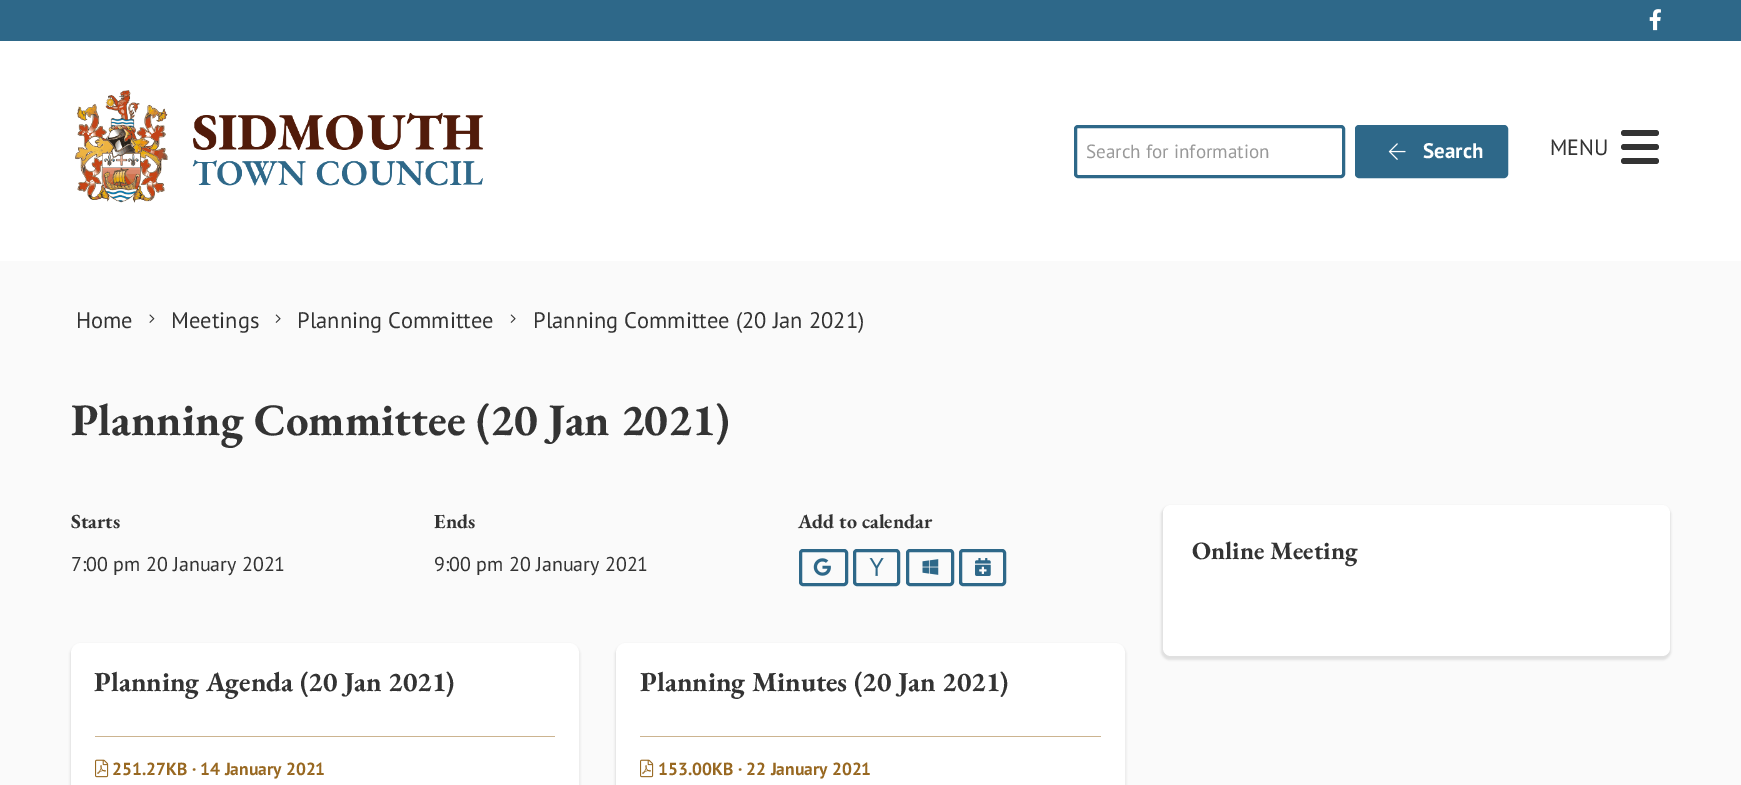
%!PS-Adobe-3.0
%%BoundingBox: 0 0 1741 785
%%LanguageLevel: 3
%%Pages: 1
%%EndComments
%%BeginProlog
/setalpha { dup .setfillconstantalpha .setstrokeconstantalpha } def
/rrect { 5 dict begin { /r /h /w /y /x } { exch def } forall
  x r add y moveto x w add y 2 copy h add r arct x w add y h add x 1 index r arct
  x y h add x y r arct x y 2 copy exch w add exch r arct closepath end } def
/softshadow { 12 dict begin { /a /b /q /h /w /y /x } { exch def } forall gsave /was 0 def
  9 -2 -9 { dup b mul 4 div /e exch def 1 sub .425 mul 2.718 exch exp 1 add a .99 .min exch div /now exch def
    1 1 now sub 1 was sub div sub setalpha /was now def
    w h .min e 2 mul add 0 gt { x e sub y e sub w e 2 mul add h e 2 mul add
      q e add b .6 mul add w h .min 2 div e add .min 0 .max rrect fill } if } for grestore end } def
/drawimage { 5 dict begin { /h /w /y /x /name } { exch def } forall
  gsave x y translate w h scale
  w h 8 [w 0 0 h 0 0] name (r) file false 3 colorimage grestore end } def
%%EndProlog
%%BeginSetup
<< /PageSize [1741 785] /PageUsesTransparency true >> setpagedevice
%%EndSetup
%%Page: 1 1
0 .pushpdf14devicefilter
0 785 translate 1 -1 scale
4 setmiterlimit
0.98 setgray
0 0 1741 785 rectfill
0.18 0.408 0.537 setrgbcolor
0 0 1741 41 rectfill
(images/1.raw) 1649 9 12 22 drawimage
1 setgray
0 41 1741 220 rectfill
(images/2.raw) 75 90 408 113 drawimage
0.18 0.408 0.537 setrgbcolor
3 setlinewidth
1075.5 126.5 268 50 2.5 rrect stroke
1356.5 126.5 150 50 2.5 rrect gsave fill grestore
stroke
(images/3.raw) 1388 143 18 17 drawimage
0.2 setgray
1621 158 38 6 3 rrect fill
1621 130 38 6 3 rrect fill
1621 144 38 6 3 rrect fill
(images/4.raw) 149 314 6 9 drawimage
(images/5.raw) 275 314 6 9 drawimage
(images/5.raw) 510 314 6 9 drawimage
0.18 0.408 0.537 setrgbcolor
800.5 550.5 46 34 2.5 rrect stroke
(images/6.raw) 813 558 18 18 drawimage
854.5 550.5 44 34 2.5 rrect stroke
(images/7.raw) 869 558 15 18 drawimage
907.5 550.5 45 34 2.5 rrect stroke
(images/8.raw) 922 559 17 16 drawimage
960.5 550.5 44 34 2.5 rrect stroke
(images/9.raw) 975 558 16 18 drawimage
0 setgray
70 644 510 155 11 1 0.1 softshadow
1 setgray
73.5 645.5 503 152 7.5 rrect gsave fill grestore
5 setlinewidth
stroke
0.8 0.706 0.565 setrgbcolor
95 736 460 1 rectfill
(images/10.raw) 95 759 14 19 drawimage
0 setgray
615 644 511 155 11 1 0.1 softshadow
1 setgray
618.5 645.5 504 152 7.5 rrect gsave fill grestore
stroke
0.8 0.706 0.565 setrgbcolor
640 736 461 1 rectfill
(images/10.raw) 640 759 14 19 drawimage
0 setgray
1161 506 510 154 9 1 0.1 softshadow
1 setgray
1163 505 507 151 8 rrect fill
/PTSans-Regular [19.1 0 0 -19.1 0 0] selectfont
0.6 setgray
1086 158 moveto (Search for information) show
/PTSans-Bold [21 0 0 -21 0 0] selectfont
1 setgray
1423 158 moveto (Search) show
/PTSans-Regular [22 0 0 -22 0 0] selectfont
0.2 setgray
1550 155 moveto (MENU) show
/PTSans-Regular [22.5 0 0 -22.5 0 0] selectfont
76 328 moveto (Home) show
171 328 moveto (Meetings) show
297 328 moveto (Planning Committee) show
533 328 moveto (Planning Committee \(20 Jan 2021\)) show
/EBGaramond-Bold [45 0 0 -45 0 0] selectfont
71 435 moveto (Planning Committee \(20 Jan 2021\)) show
/EBGaramond-Bold [20 0 0 -20 0 0] selectfont
71 528 moveto (Starts) show
/PTSans-Regular [20 0 0 -20 0 0] selectfont
71 571 moveto (7:00 pm 20 January 2021) show
/EBGaramond-Bold [20 0 0 -20 0 0] selectfont
434 528 moveto (Ends) show
/PTSans-Regular [20 0 0 -20 0 0] selectfont
434 571 moveto (9:00 pm 20 January 2021) show
/EBGaramond-Bold [20 0 0 -20 0 0] selectfont
798 528 moveto (Add to calendar) show
/EBGaramond-Bold [27.5 0 0 -27.5 0 0] selectfont
94 691 moveto (Planning Agenda \(20 Jan 2021\)) show
/PTSans-Bold [17.5 0 0 -17.5 0 0] selectfont
0.596 0.408 0.129 setrgbcolor
112 775 moveto (251.27KB · 14 January 2021) show
/EBGaramond-Bold [27.5 0 0 -27.5 0 0] selectfont
0.2 setgray
640 691 moveto (Planning Minutes \(20 Jan 2021\)) show
/PTSans-Bold [17.5 0 0 -17.5 0 0] selectfont
0.596 0.408 0.129 setrgbcolor
658 775 moveto (153.00KB · 22 January 2021) show
/EBGaramond-Bold [25 0 0 -25 0 0] selectfont
0.2 setgray
1192 559 moveto (Online Meeting) show
.poppdf14devicefilter showpage
%%EOF
